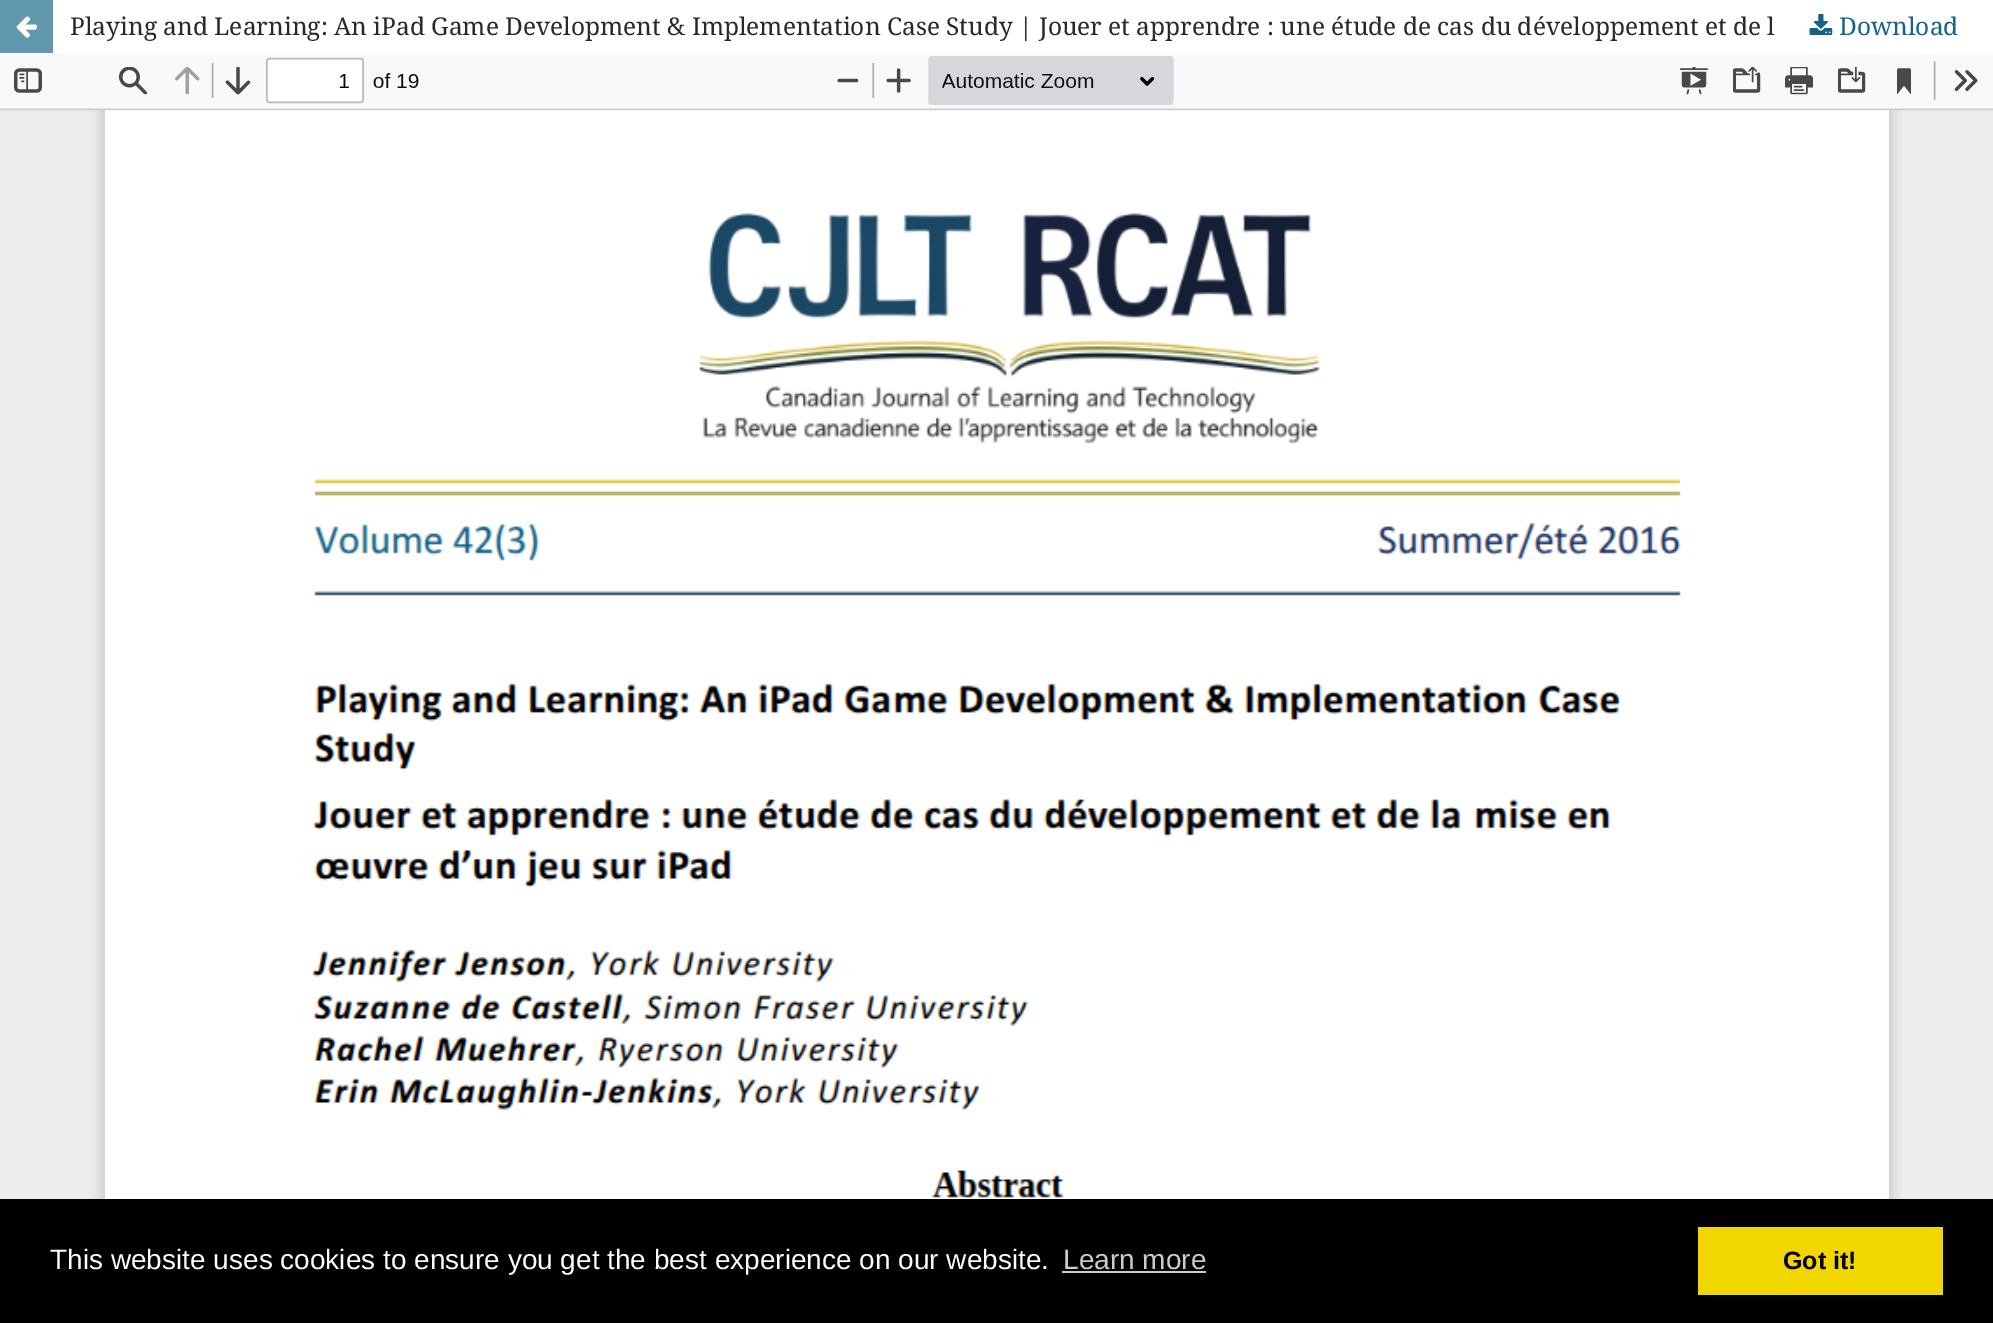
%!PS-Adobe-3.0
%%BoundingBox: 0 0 1993 1323
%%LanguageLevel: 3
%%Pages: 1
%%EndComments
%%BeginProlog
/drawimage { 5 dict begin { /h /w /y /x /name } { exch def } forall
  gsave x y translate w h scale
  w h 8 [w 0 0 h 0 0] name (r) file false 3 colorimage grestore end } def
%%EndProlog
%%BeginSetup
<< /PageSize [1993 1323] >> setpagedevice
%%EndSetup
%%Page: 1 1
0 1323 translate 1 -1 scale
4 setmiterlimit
1 setgray
0 0 1993 1323 rectfill
0.384 0.596 0.682 setrgbcolor
0 0 53 53 rectfill
(images/1.raw) 16 16 21 22 drawimage
(images/2.raw) 1809 14 24 21 drawimage
(images/3.raw) 0 53 1993 1146 drawimage
0 setgray
0 1199 1993 124 rectfill
0.8 setgray
1062 1271 144 2 rectfill
0.945 0.839 0 setrgbcolor
1698 1227 245 68 rectfill
/NotoSerif-Regular [24.5 0 0 -24.5 0 0] selectfont
0.161 setgray
70 35 moveto (Playing and Learning: An iPad Game Development & Implementation Case Study | Jouer et apprendre : une étude de cas du développement et de l) show
0.078 0.384 0.537 setrgbcolor
1839 35 moveto (Download) show
/LiberationSans-Regular [28 0 0 -28 0 0] selectfont
1 setgray
50 1269 moveto (This website uses cookies to ensure you get the best experience on our website.) show
0.8 setgray
1063 1269 moveto (Learn more) show
/LiberationSans-Bold [25 0 0 -25 0 0] selectfont
0 setgray
1783 1269 moveto (Got it!) show
showpage
%%EOF
